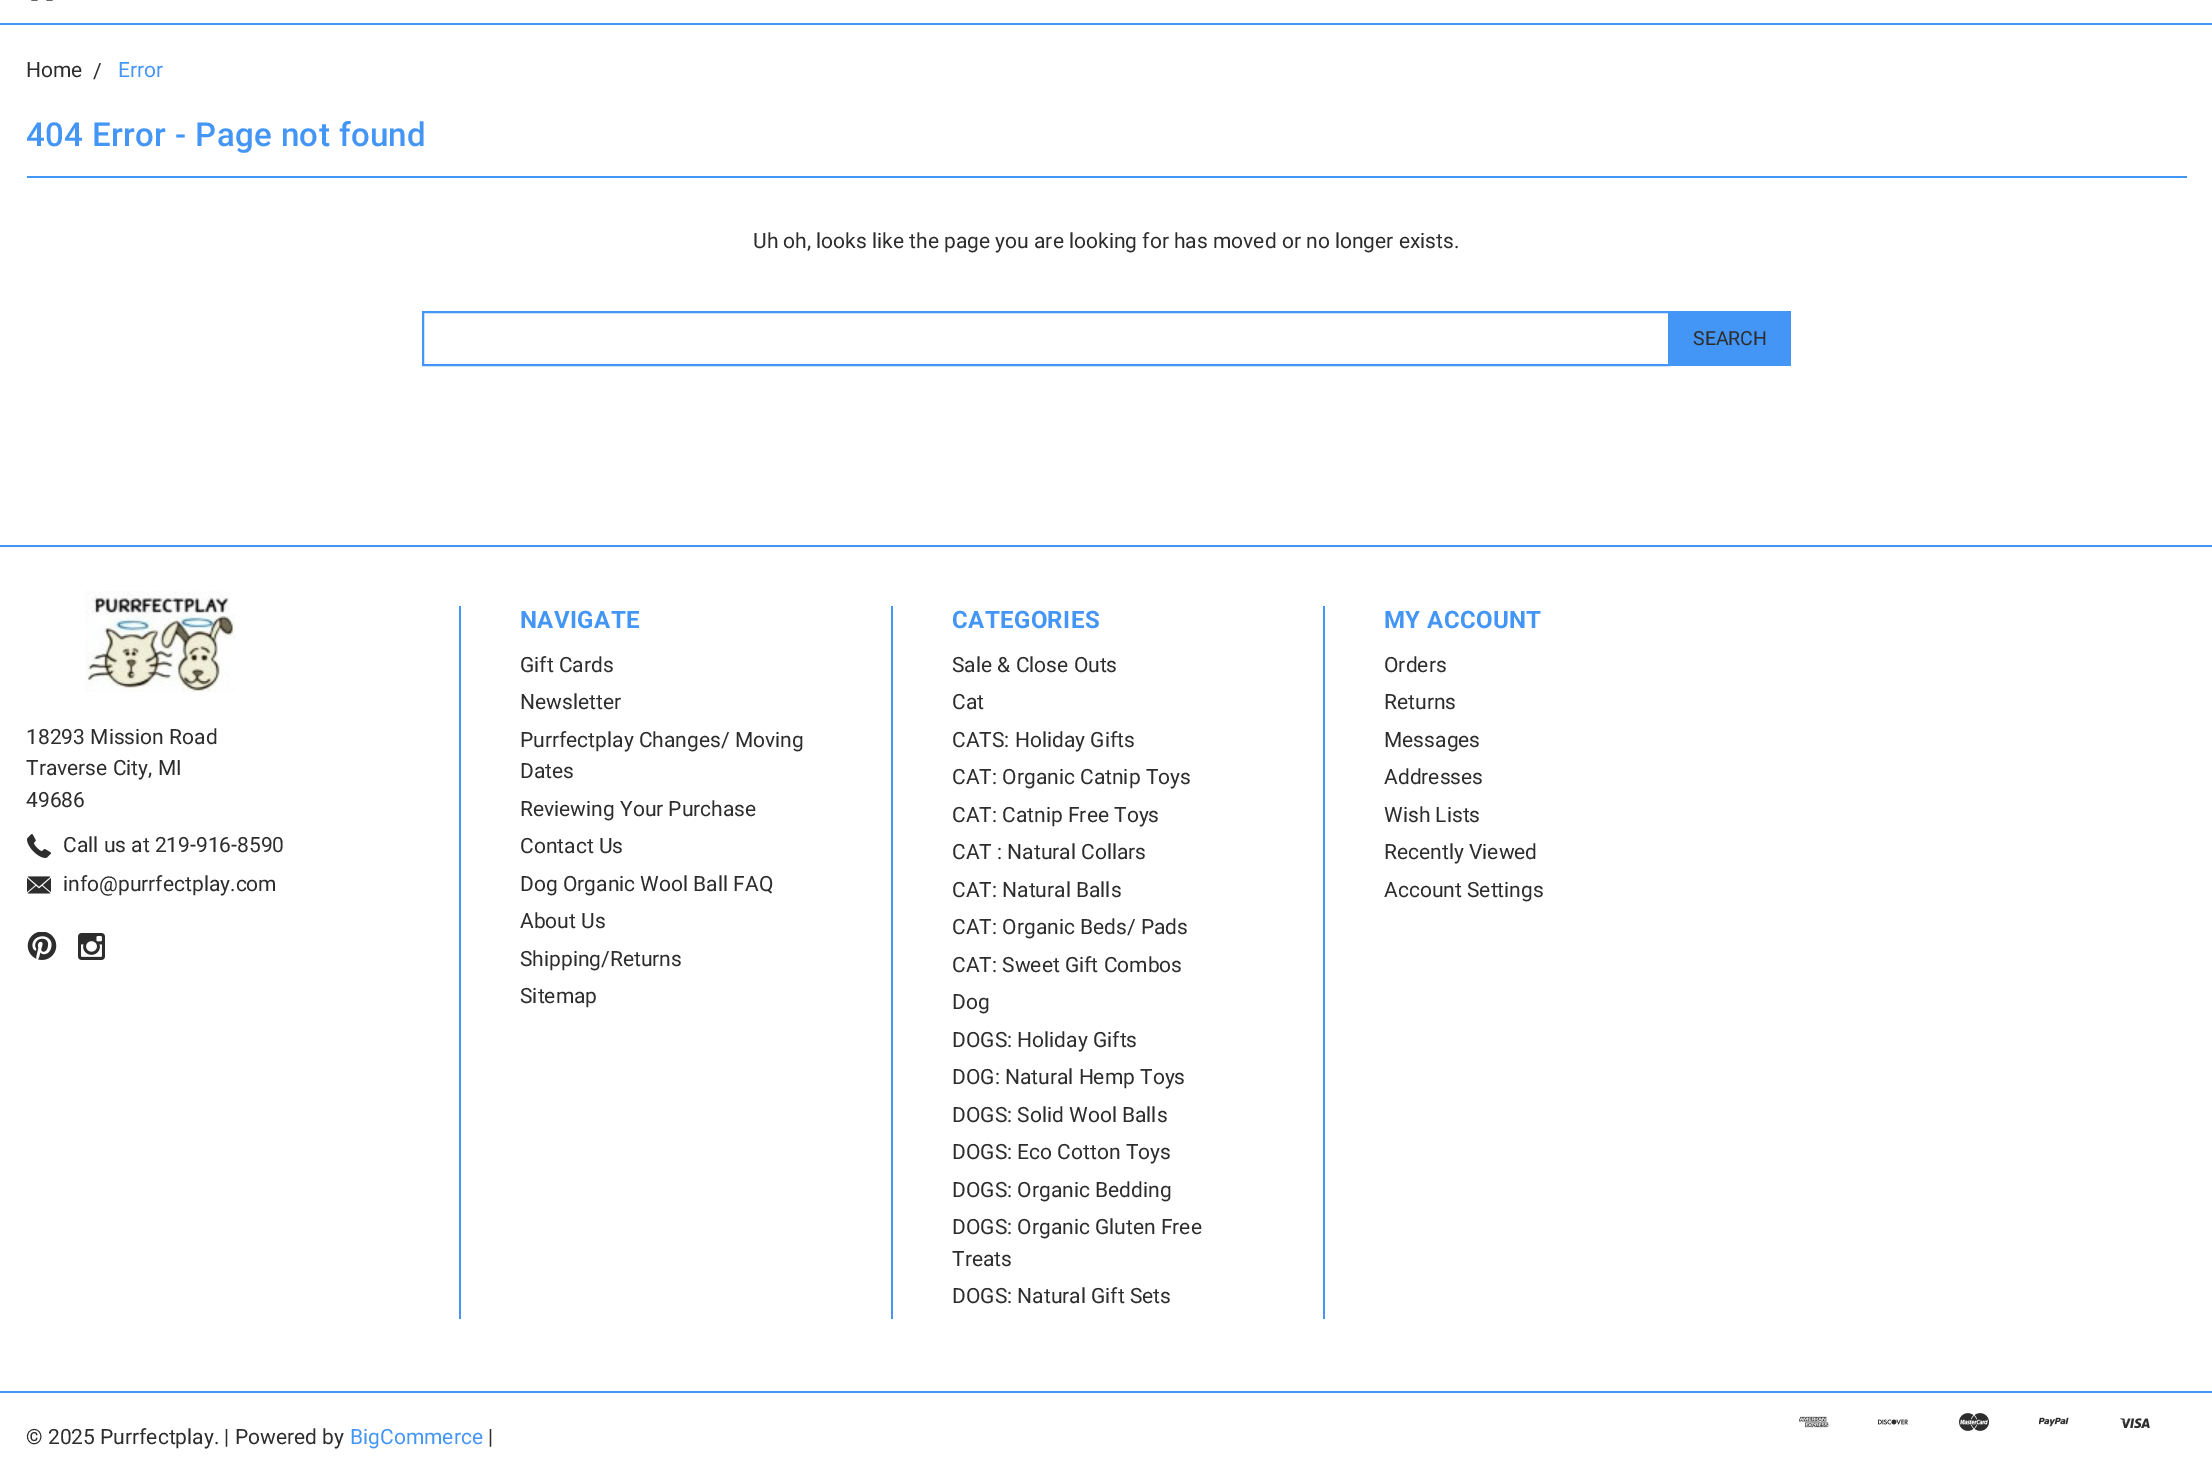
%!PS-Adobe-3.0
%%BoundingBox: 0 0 2212 1482
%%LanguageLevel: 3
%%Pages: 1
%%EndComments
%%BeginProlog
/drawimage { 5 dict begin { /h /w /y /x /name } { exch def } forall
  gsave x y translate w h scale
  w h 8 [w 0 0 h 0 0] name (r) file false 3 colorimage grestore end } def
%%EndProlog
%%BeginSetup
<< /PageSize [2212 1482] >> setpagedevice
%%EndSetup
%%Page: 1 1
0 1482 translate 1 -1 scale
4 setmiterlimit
1 setgray
0 0 2212 1482 rectfill
0.267 0.588 0.965 setrgbcolor
0 23 2212 2 rectfill
(images/1.raw) 31 0 22 1 drawimage
27 176 2160 2 rectfill
2 setlinewidth
423 312 1246 53 rectstroke
1670 311 121 55 rectfill
0 545 2212 2 rectfill
(images/2.raw) 85 591 151 101 drawimage
(images/3.raw) 27 834 24 24 drawimage
(images/4.raw) 27 876 24 18 drawimage
(images/5.raw) 27 932 30 28 drawimage
(images/6.raw) 78 933 27 27 drawimage
459 606 2 713 rectfill
891 606 2 713 rectfill
1323 606 2 713 rectfill
0 1391 2212 2 rectfill
(images/7.raw) 1799 1416 30 12 drawimage
(images/8.raw) 1878 1419 30 6 drawimage
(images/9.raw) 1959 1413 30 18 drawimage
(images/10.raw) 2039 1417 30 10 drawimage
(images/11.raw) 2120 1418 30 11 drawimage
/Roboto-Regular [21 0 0 -21 0 0] selectfont
0.176 setgray
26 77 moveto (Home) show
93 78 moveto (/) show
0.267 0.588 0.965 setrgbcolor
118 77 moveto (Error) show
/Roboto-Medium [33 0 0 -33 0 0] selectfont
26 146 moveto 0.4 0 (404 Error - Page not found) ashow
/Roboto-Regular [21 0 0 -21 0 0] selectfont
0.176 setgray
753 248 moveto (Uh oh, looks like the page you are looking for has moved or no longer exists.) show
/Roboto-Regular [19.5 0 0 -19.5 0 0] selectfont
1693 345 moveto (SEARCH) show
/Roboto-Regular [21 0 0 -21 0 0] selectfont
26 744 moveto (18293 Mission Road) show
26 775 moveto (Traverse City, MI) show
26 807 moveto (49686) show
63 852 moveto (Call us at 219-916-8590) show
63 891 moveto (info@purrfectplay.com) show
/Roboto-Bold [24 0 0 -24 0 0] selectfont
0.267 0.588 0.965 setrgbcolor
520 628 moveto 0.4 0 (NAVIGATE) ashow
/Roboto-Regular [21 0 0 -21 0 0] selectfont
0.176 setgray
520 672 moveto (Gift Cards) show
520 709 moveto (Newsletter) show
520 747 moveto (Purrfectplay Changes/ Moving) show
520 778 moveto (Dates) show
520 816 moveto (Reviewing Your Purchase) show
520 853 moveto (Contact Us) show
520 891 moveto (Dog Organic Wool Ball FAQ) show
520 928 moveto (About Us) show
520 966 moveto (Shipping/Returns) show
520 1003 moveto (Sitemap) show
/Roboto-Bold [24 0 0 -24 0 0] selectfont
0.267 0.588 0.965 setrgbcolor
952 628 moveto 0.4 0 (CATEGORIES) ashow
/Roboto-Regular [21 0 0 -21 0 0] selectfont
0.176 setgray
952 672 moveto (Sale & Close Outs) show
952 709 moveto (Cat) show
952 747 moveto (CATS: Holiday Gifts) show
952 784 moveto (CAT: Organic Catnip Toys) show
952 822 moveto (CAT: Catnip Free Toys) show
952 859 moveto (CAT : Natural Collars) show
952 897 moveto (CAT: Natural Balls) show
952 934 moveto (CAT: Organic Beds/ Pads) show
952 972 moveto (CAT: Sweet Gift Combos) show
952 1009 moveto (Dog) show
952 1047 moveto (DOGS: Holiday Gifts) show
952 1084 moveto (DOG: Natural Hemp Toys) show
952 1122 moveto (DOGS: Solid Wool Balls) show
952 1159 moveto (DOGS: Eco Cotton Toys) show
952 1197 moveto (DOGS: Organic Bedding) show
952 1234 moveto (DOGS: Organic Gluten Free) show
952 1266 moveto (Treats) show
952 1303 moveto (DOGS: Natural Gift Sets) show
/Roboto-Bold [24 0 0 -24 0 0] selectfont
0.267 0.588 0.965 setrgbcolor
1384 628 moveto 0.4 0 (MY ACCOUNT) ashow
/Roboto-Regular [21 0 0 -21 0 0] selectfont
0.176 setgray
1384 672 moveto (Orders) show
1384 709 moveto (Returns) show
1384 747 moveto (Messages) show
1384 784 moveto (Addresses) show
1384 822 moveto (Wish Lists) show
1384 859 moveto (Recently Viewed) show
1384 897 moveto (Account Settings) show
26 1444 moveto (© 2025 Purrfectplay. | Powered by) show
0.267 0.588 0.965 setrgbcolor
350 1444 moveto (BigCommerce) show
0.176 setgray
488 1444 moveto (|) show
showpage
%%EOF
